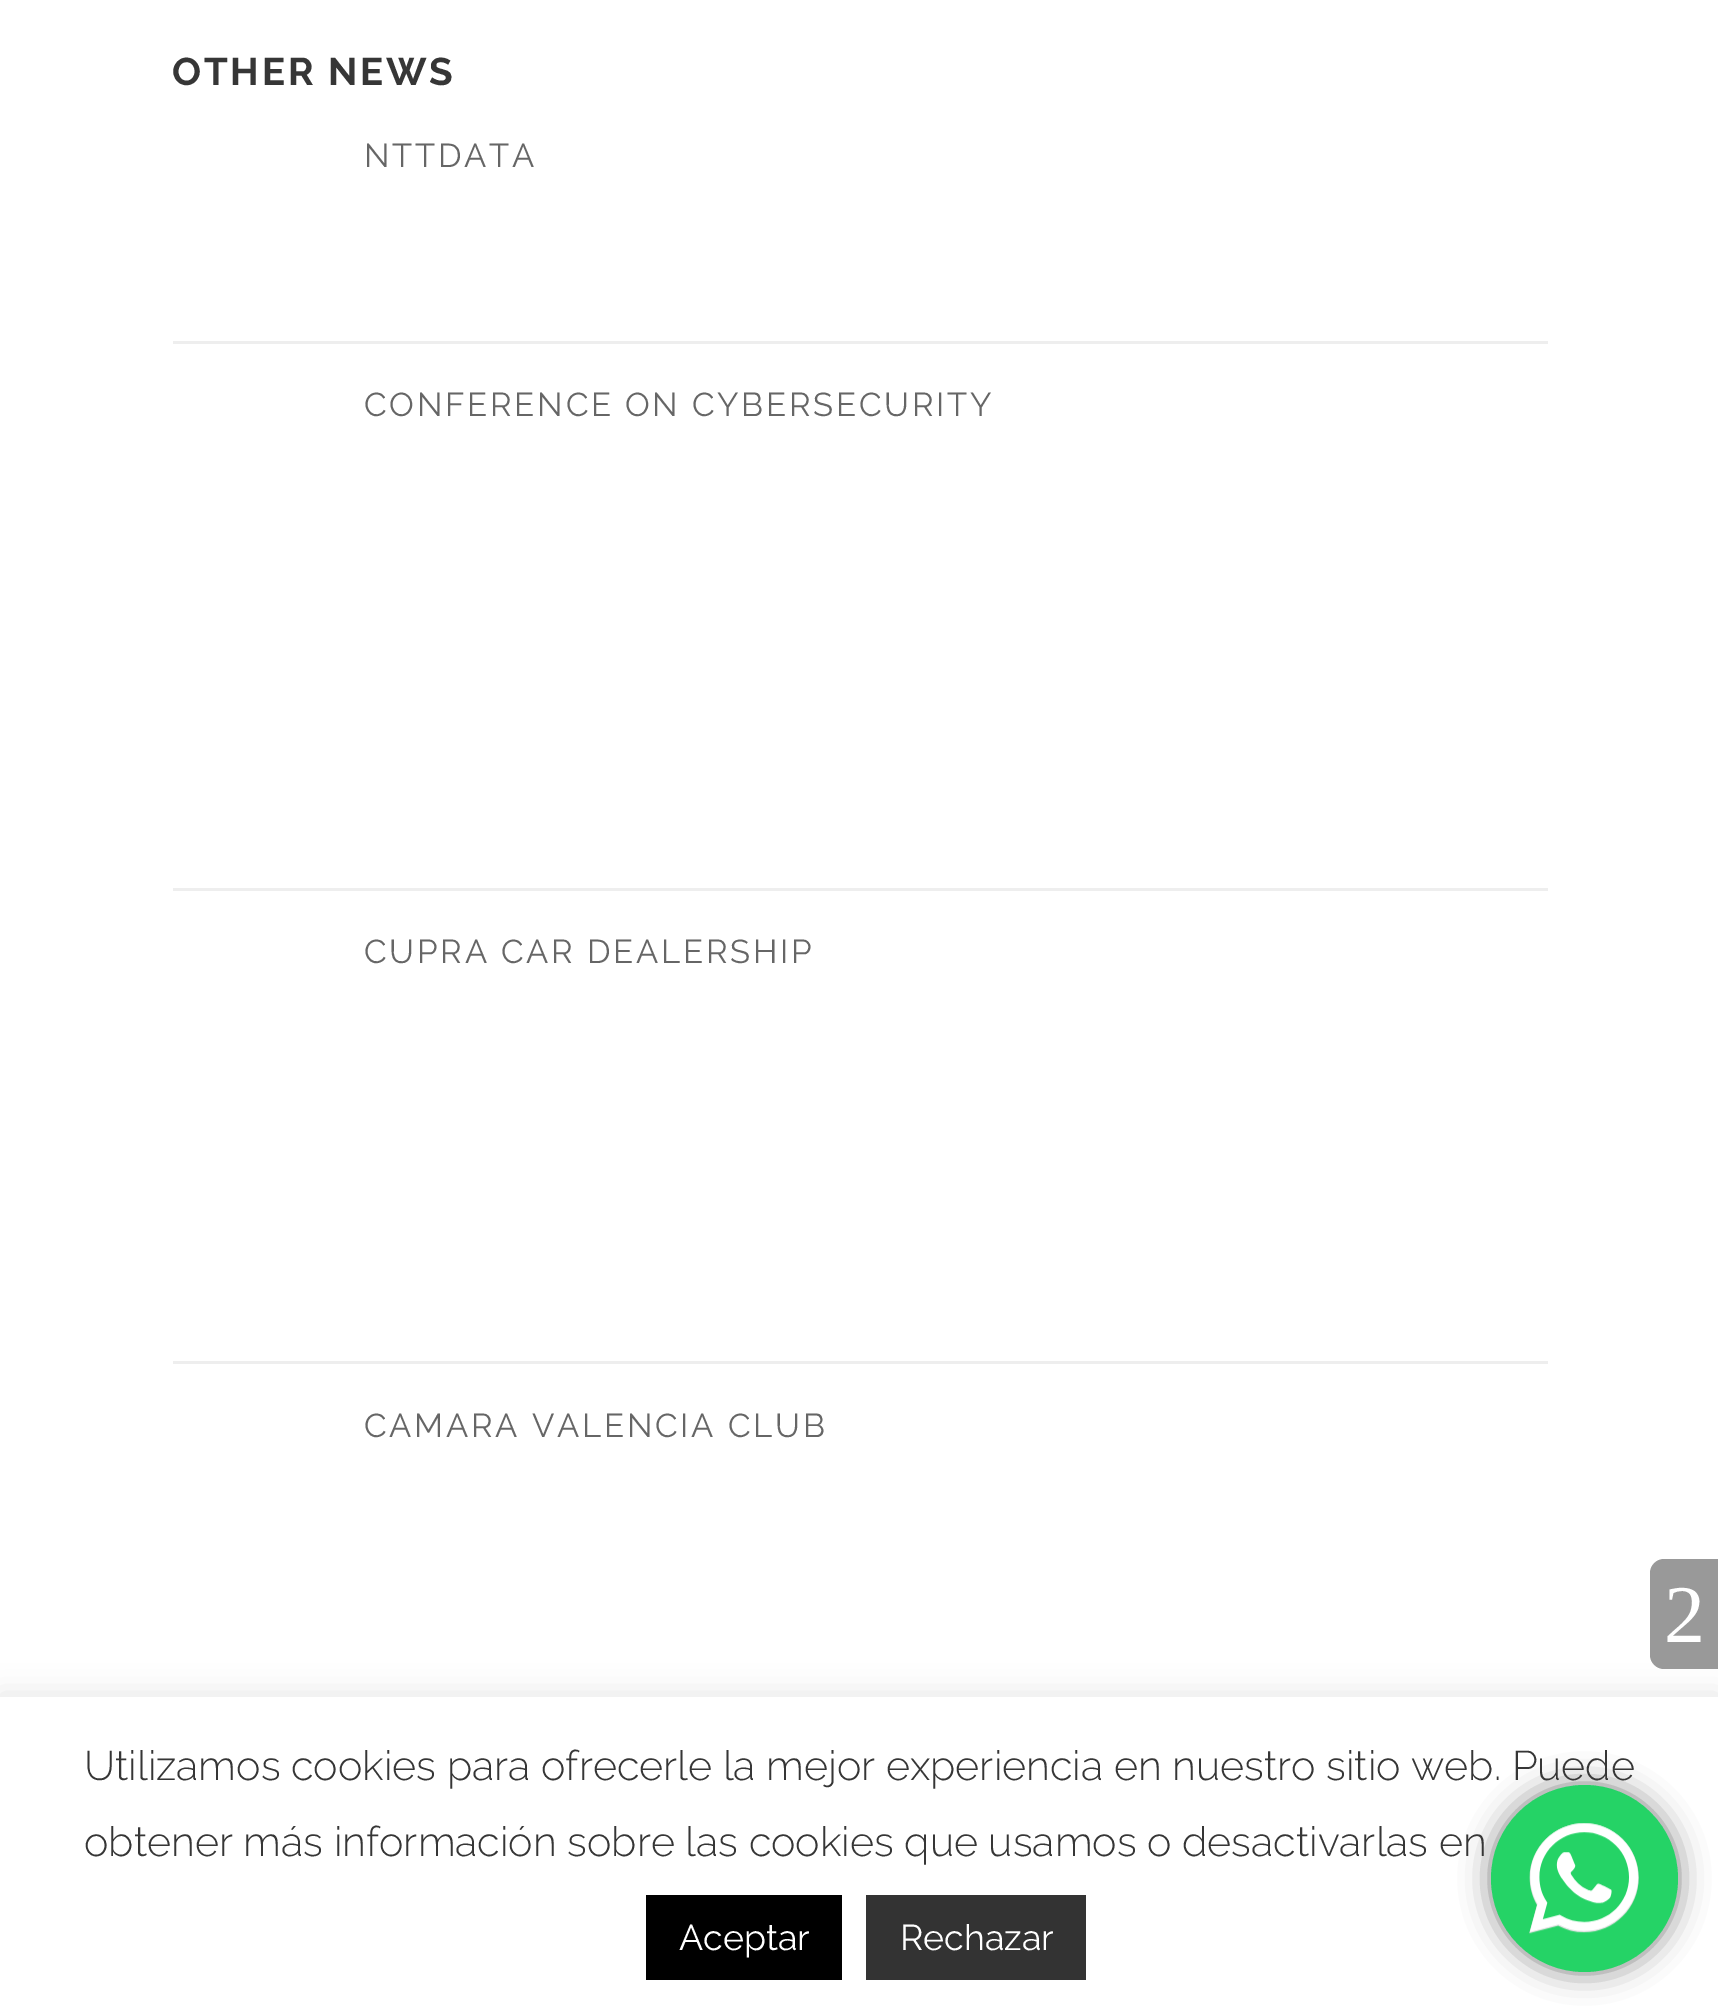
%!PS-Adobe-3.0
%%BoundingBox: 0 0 1718 2012
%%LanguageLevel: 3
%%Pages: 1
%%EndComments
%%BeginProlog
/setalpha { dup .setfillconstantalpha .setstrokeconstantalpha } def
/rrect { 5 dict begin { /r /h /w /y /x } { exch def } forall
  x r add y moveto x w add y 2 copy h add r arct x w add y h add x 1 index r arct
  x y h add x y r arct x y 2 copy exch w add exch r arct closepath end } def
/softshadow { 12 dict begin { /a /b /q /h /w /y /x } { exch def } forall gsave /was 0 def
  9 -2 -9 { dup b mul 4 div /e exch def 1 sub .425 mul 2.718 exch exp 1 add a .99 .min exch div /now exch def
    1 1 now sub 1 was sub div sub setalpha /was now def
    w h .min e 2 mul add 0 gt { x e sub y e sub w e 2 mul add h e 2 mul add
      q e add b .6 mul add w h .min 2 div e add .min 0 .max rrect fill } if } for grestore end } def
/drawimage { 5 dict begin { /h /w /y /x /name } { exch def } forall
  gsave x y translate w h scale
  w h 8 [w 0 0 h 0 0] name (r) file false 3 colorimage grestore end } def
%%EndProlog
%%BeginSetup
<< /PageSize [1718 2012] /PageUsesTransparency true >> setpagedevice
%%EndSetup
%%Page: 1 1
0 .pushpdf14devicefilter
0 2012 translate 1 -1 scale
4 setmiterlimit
1 setgray
0 0 1718 2012 rectfill
0.933 setgray
173 341 1375 3 rectfill
173 888 1375 3 rectfill
173 1361 1375 3 rectfill
0.675 0.671 0.671 setrgbcolor
0 1694 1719 316 0 14 0.3 softshadow
0.6 setgray
newpath 1664 1559 moveto 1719 1559 lineto 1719 1669 lineto 1664 1669 lineto 1656.5 1669 1650 1662.5 1650 1655 curveto 1650 1573 lineto 1650 1565.5 1656.5 1559 1664 1559 curveto closepath fill
1 setgray
0 1697 1718 315 rectfill
0 setgray
1491 1785 187 187 93.5 15 0.5 softshadow
646 1895 196 85 rectfill
0.2 setgray
866 1895 220 85 rectfill
/Raleway-Bold [38.5 0 0 -38.5 0 0] selectfont
0.212 setgray
172 85 moveto 2.75 0 (OTHER NEWS) ashow
/Raleway-Regular [33 0 0 -33 0 0] selectfont
0.4 setgray
364 167 moveto 2.75 0 (NTTDATA) ashow
364 416 moveto 2.75 0 (CONFERENCE ON CYBERSECURITY) ashow
364 963 moveto 2.75 0 (CUPRA CAR DEALERSHIP) ashow
364 1437 moveto 2.75 0 (CAMARA VALENCIA CLUB) ashow
/LiberationSerif-Regular [82 0 0 -82 0 0] selectfont
1 setgray
1664 1642 moveto (2) show
/Raleway-Light [41.25 0 0 -41.25 0 0] selectfont
0.212 setgray
84 1780 moveto (Utilizamos cookies para ofrecerle la mejor experiencia en nuestro sitio web. Puede) show
0.145 0.827 0.4 setrgbcolor
newpath 1584.5 1878.5 93.5 0 360 arc closepath fill
(images/1.raw) 1529 1823 110 111 drawimage
0.212 setgray
84 1856 moveto (obtener más información sobre las cookies que usamos o desactivarlas en) show
/Raleway-Regular [35.75 0 0 -35.75 0 0] selectfont
1 setgray
679 1950 moveto (Aceptar) show
900 1950 moveto (Rechazar) show
.poppdf14devicefilter showpage
%%EOF
